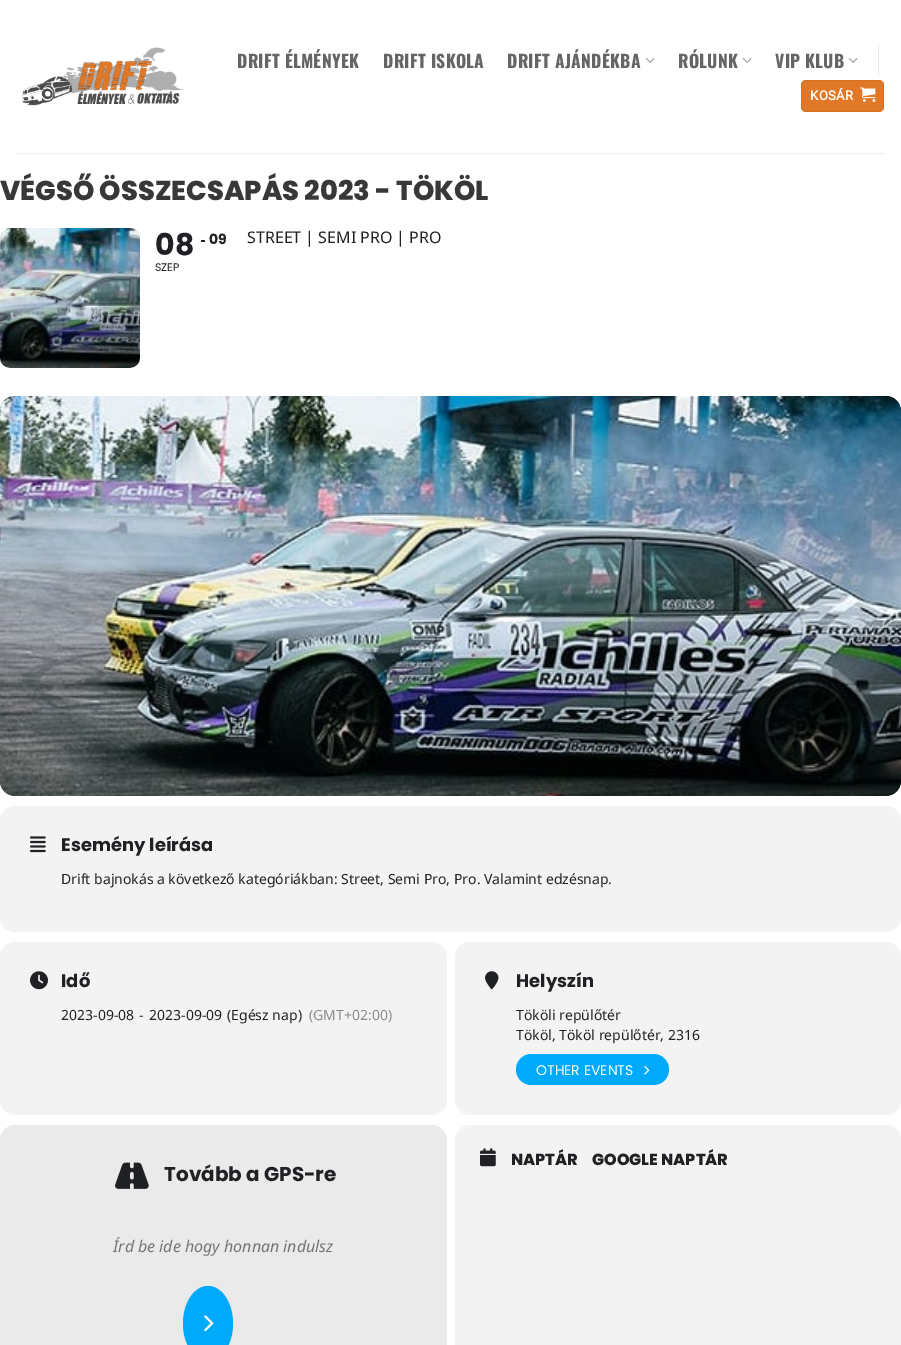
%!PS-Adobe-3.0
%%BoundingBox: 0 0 901 1345
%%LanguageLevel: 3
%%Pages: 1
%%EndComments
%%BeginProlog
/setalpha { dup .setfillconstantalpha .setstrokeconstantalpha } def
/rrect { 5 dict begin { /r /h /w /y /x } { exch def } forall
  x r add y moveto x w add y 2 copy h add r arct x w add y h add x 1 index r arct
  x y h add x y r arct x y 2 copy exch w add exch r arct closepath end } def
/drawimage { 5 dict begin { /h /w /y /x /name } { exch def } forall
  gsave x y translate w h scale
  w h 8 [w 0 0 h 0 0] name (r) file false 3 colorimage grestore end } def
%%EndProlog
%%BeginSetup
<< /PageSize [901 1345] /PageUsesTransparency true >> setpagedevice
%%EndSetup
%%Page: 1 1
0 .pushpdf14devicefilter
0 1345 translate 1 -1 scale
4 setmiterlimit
1 setgray
0 0 901 1345 rectfill
(images/1.raw) 22 47 162 59 drawimage
(images/2.raw) 645 57 10 6 drawimage
(images/2.raw) 742 57 10 6 drawimage
(images/2.raw) 848 57 10 6 drawimage
0.902 setgray
878 45 1 30 rectfill
0.882 0.471 0.153 setrgbcolor
801 80 83 32 5 rrect fill
0.05 setalpha
0 setgray
801.5 80.5 82 31 rectstroke
1 setalpha
(images/3.raw) 860 87 16 15 drawimage
0.933 setgray
15 153 871 1 rectfill
(images/4.raw) 0 228 140 140 drawimage
0.125 0.129 0.141 setrgbcolor
201 240 4 2 rectfill
0.2 setgray
0 396 901 400 15 rrect fill
(images/5.raw) 0 396 901 400 drawimage
0.953 setgray
0 806 901 126 15 rrect fill
(images/6.raw) 30 836 16 17 drawimage
0 942 447 173 15 rrect fill
(images/7.raw) 30 971 18 19 drawimage
455 942 446 173 15 rrect fill
(images/8.raw) 485 971 14 19 drawimage
0 0.667 0.984 setrgbcolor
516 1054 153 31 15.5 rrect fill
(images/9.raw) 644 1065 6 10 drawimage
0.953 setgray
455 1125 446 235 15 rrect fill
(images/10.raw) 480 1148 16 19 drawimage
0.918 setgray
newpath 15 1125 moveto 432 1125 lineto 440 1125 447 1132 447 1140 curveto 447 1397 lineto 447 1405 440 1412 432 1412 curveto 15 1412 lineto 7 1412 0 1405 0 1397 curveto 0 1140 lineto 0 1132 7 1125 15 1125 curveto closepath fill
(images/11.raw) 115 1162 34 27 drawimage
0 0.667 0.984 setrgbcolor
newpath 208 1286 moveto 222 1286 233 1303 233 1323.5 curveto 233 1344 222 1361 208 1361 curveto 194 1361 183 1344 183 1323.5 curveto 183 1303 194 1286 208 1286 curveto closepath fill
(images/12.raw) 204 1315 10 17 drawimage
/Oswald-Bold [17.5 0 0 -17.5 0 0] selectfont
0.396 setgray
237 68 moveto 0.3 0 (DRIFT ÉLMÉNYEK) ashow
383 68 moveto 0.3 0 (DRIFT ISKOLA) ashow
507 68 moveto 0.3 0 (DRIFT AJÁNDÉKBA) ashow
678 68 moveto 0.3 0 (RÓLUNK) ashow
775 68 moveto 0.3 0 (VIP KLUB) ashow
/Roboto-Bold [13 0 0 -13 0 0] selectfont
1 setgray
810 100 moveto 0.5 0 (KOSÁR) ashow
/Poppins-ExtraBold [27.25 0 0 -27.25 0 0] selectfont
0.22 setgray
0 200 moveto (VÉGSŐ ÖSSZECSAPÁS 2023 - TÖKÖL) show
/Poppins-Bold [30 0 0 -30 0 0] selectfont
0.125 0.129 0.141 setrgbcolor
155 255 moveto (08) show
/Poppins-Regular [11 0 0 -11 0 0] selectfont
155 271 moveto (SZEP) show
/Poppins-Bold [14 0 0 -14 0 0] selectfont
209 244 moveto (09) show
/NotoSans-Regular [16 0 0 -16 0 0] selectfont
247 243 moveto (STREET | SEMI PRO | PRO) show
/Poppins-Bold [18 0 0 -18 0 0] selectfont
61 851 moveto (Esemény leírása) show
/NotoSans-Regular [14 0 0 -14 0 0] selectfont
61 884 moveto (Drift bajnokás a következő kategóriákban: Street, Semi Pro, Pro. Valamint edzésnap.) show
/Poppins-Bold [18 0 0 -18 0 0] selectfont
61 987 moveto (Idő) show
/NotoSans-Regular [14 0 0 -14 0 0] selectfont
61 1020 moveto (2023-09-08) show
139 1020 moveto (-) show
149 1020 moveto (2023-09-09) show
227 1020 moveto (\(Egész nap\)) show
0.541 0.541 0.549 setrgbcolor
309 1020 moveto (\(GMT+02:00\)) show
/Poppins-Bold [18 0 0 -18 0 0] selectfont
0.125 0.129 0.141 setrgbcolor
516 987 moveto (Helyszín) show
/NotoSans-Regular [14 0 0 -14 0 0] selectfont
516 1020 moveto (Tököli repülőtér) show
516 1040 moveto (Tököl, Tököl repülőtér, 2316) show
/Poppins-Regular [14 0 0 -14 0 0] selectfont
1 setgray
536 1075 moveto (OTHER EVENTS) show
/Poppins-ExtraBold [16 0 0 -16 0 0] selectfont
0.125 0.129 0.141 setrgbcolor
511 1165 moveto (NAPTÁR) show
592 1165 moveto (GOOGLE NAPTÁR) show
/Poppins-Bold [20 0 0 -20 0 0] selectfont
164 1181 moveto (Tovább a GPS-re) show
/NotoSans-Italic [16 0 0 -16 0 0] selectfont
0.459 setgray
113 1252 moveto (Írd be ide hogy honnan indulsz) show
.poppdf14devicefilter showpage
%%EOF
